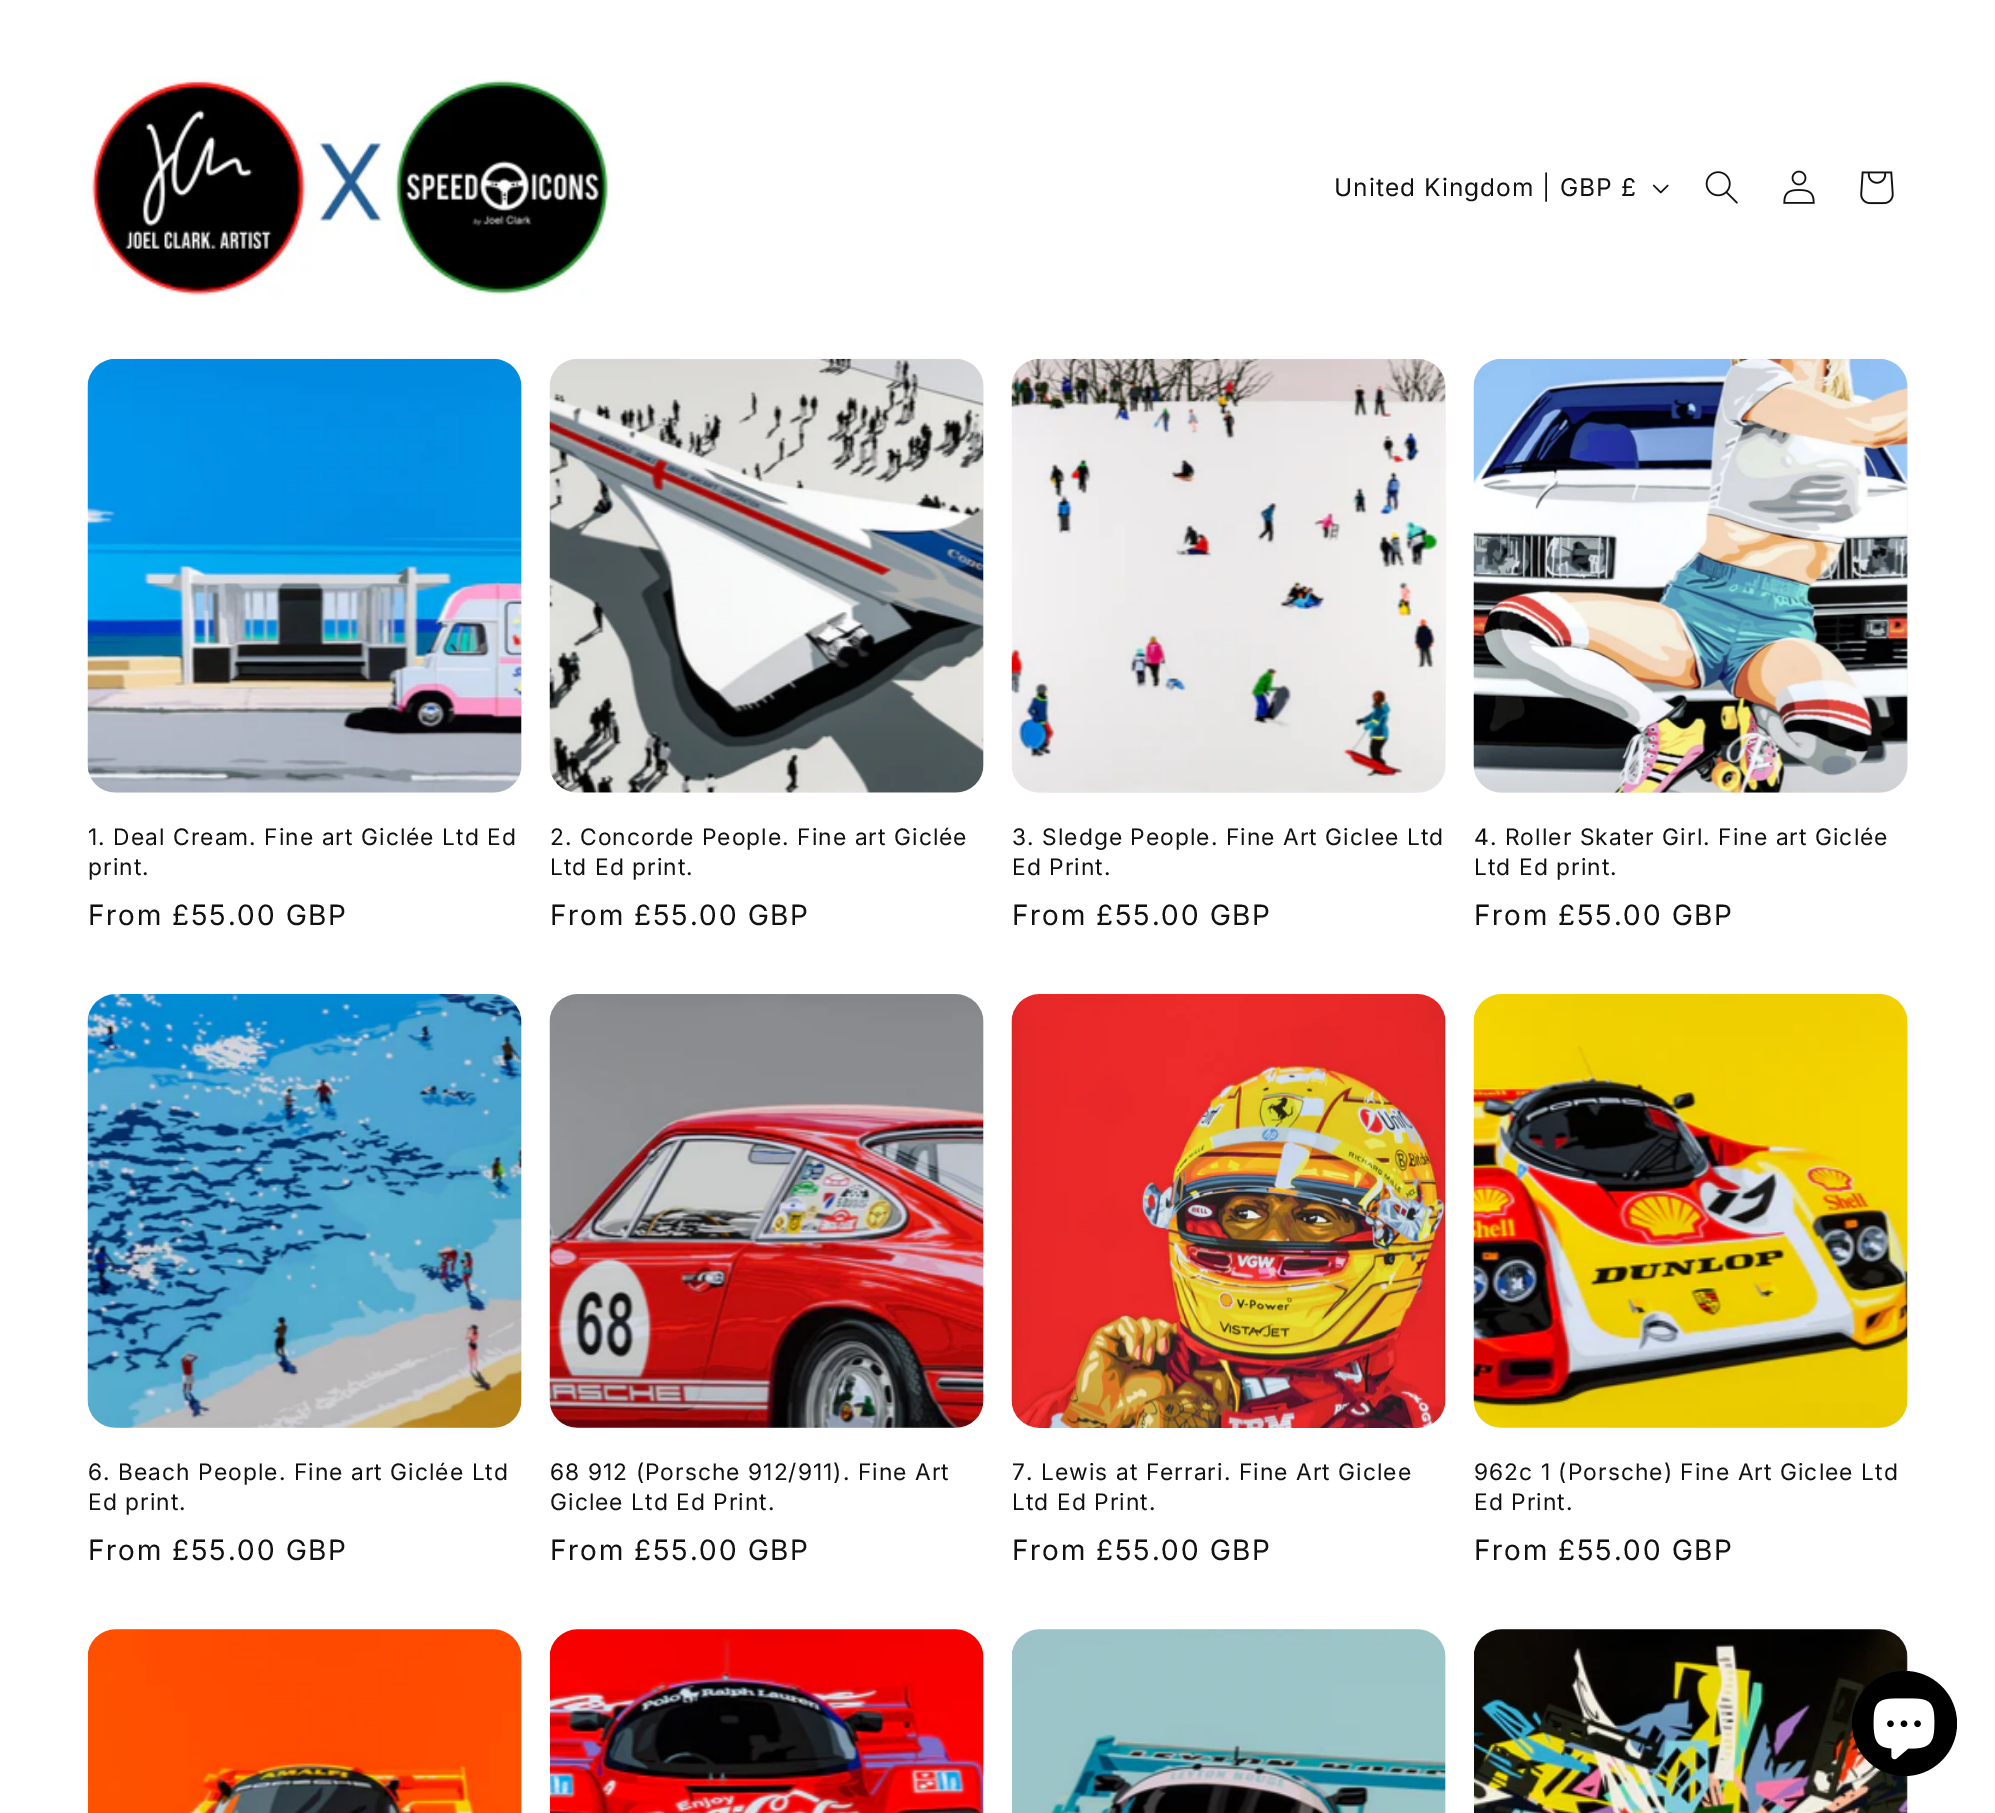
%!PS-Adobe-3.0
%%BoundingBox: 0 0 1995 1813
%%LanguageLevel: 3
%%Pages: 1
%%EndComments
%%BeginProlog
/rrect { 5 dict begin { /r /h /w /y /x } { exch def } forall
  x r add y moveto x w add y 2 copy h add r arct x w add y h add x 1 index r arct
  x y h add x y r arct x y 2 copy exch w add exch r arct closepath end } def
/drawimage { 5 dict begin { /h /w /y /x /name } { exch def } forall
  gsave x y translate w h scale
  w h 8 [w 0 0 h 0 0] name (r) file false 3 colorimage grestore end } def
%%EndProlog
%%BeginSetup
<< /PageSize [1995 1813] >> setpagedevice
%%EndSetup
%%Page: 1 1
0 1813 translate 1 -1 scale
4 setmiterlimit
1 setgray
0 0 1995 1813 rectfill
(images/1.raw) 88 77 523 221 drawimage
(images/2.raw) 1652 184 17 10 drawimage
(images/3.raw) 1705 171 33 33 drawimage
(images/4.raw) 1783 170 32 34 drawimage
(images/5.raw) 1860 171 34 34 drawimage
0.953 setgray
88 359 434 434 28 rrect fill
(images/6.raw) 87 358 435 435 drawimage
550 359 434 434 28 rrect fill
(images/7.raw) 549 358 435 435 drawimage
1012 359 434 434 28 rrect fill
(images/8.raw) 1011 358 435 435 drawimage
1474 359 434 434 28 rrect fill
(images/9.raw) 1473 358 435 435 drawimage
88 994 434 434 28 rrect fill
(images/10.raw) 87 994 435 434 drawimage
550 994 434 434 28 rrect fill
(images/11.raw) 549 994 435 434 drawimage
1012 994 434 434 28 rrect fill
(images/12.raw) 1011 994 435 434 drawimage
1474 994 434 434 28 rrect fill
(images/13.raw) 1473 994 435 434 drawimage
88 1629 434 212 28 rrect fill
(images/14.raw) 88 1629 434 184 drawimage
550 1629 434 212 28 rrect fill
(images/15.raw) 550 1629 434 184 drawimage
1012 1629 434 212 28 rrect fill
(images/16.raw) 1012 1629 434 184 drawimage
1474 1629 434 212 28 rrect fill
(images/17.raw) 1474 1629 434 184 drawimage
0 setgray
newpath 1904.5 1723.5 52.5 0 360 arc closepath fill
(images/18.raw) 1873 1698 62 62 drawimage
/Inter-Regular [24.5 0 0 -24.5 0 0] selectfont
0.071 setgray
1334 196 moveto 1.05 0 (United Kingdom | GBP £) ashow
/Inter-Regular [22.75 0 0 -22.75 0 0] selectfont
88 845 moveto 1.05 0 (1. Deal Cream. Fine art Giclée Ltd Ed) ashow
88 875 moveto 1.05 0 (print.) ashow
/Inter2-Regular [28 0 0 -28 0 0] selectfont
88 925 moveto 1.75 0 (From £55.00 GBP) ashow
/Inter-Regular [22.75 0 0 -22.75 0 0] selectfont
550 845 moveto 1.05 0 (2. Concorde People. Fine art Giclée) ashow
550 875 moveto 1.05 0 (Ltd Ed print.) ashow
/Inter2-Regular [28 0 0 -28 0 0] selectfont
550 925 moveto 1.75 0 (From £55.00 GBP) ashow
/Inter-Regular [22.75 0 0 -22.75 0 0] selectfont
1012 845 moveto 1.05 0 (3. Sledge People. Fine Art Giclee Ltd) ashow
1012 875 moveto 1.05 0 (Ed Print.) ashow
/Inter2-Regular [28 0 0 -28 0 0] selectfont
1012 925 moveto 1.75 0 (From £55.00 GBP) ashow
/Inter-Regular [22.75 0 0 -22.75 0 0] selectfont
1474 845 moveto 1.05 0 (4. Roller Skater Girl. Fine art Giclée) ashow
1474 875 moveto 1.05 0 (Ltd Ed print.) ashow
/Inter2-Regular [28 0 0 -28 0 0] selectfont
1474 925 moveto 1.75 0 (From £55.00 GBP) ashow
/Inter-Regular [22.75 0 0 -22.75 0 0] selectfont
88 1480 moveto 1.05 0 (6. Beach People. Fine art Giclée Ltd) ashow
88 1510 moveto 1.05 0 (Ed print.) ashow
/Inter2-Regular [28 0 0 -28 0 0] selectfont
88 1560 moveto 1.75 0 (From £55.00 GBP) ashow
/Inter-Regular [22.75 0 0 -22.75 0 0] selectfont
550 1480 moveto 1.05 0 (68 912 \(Porsche 912/911\). Fine Art) ashow
550 1510 moveto 1.05 0 (Giclee Ltd Ed Print.) ashow
/Inter2-Regular [28 0 0 -28 0 0] selectfont
550 1560 moveto 1.75 0 (From £55.00 GBP) ashow
/Inter-Regular [22.75 0 0 -22.75 0 0] selectfont
1012 1480 moveto 1.05 0 (7. Lewis at Ferrari. Fine Art Giclee) ashow
1012 1510 moveto 1.05 0 (Ltd Ed Print.) ashow
/Inter2-Regular [28 0 0 -28 0 0] selectfont
1012 1560 moveto 1.75 0 (From £55.00 GBP) ashow
/Inter-Regular [22.75 0 0 -22.75 0 0] selectfont
1474 1480 moveto 1.05 0 (962c 1 \(Porsche\) Fine Art Giclee Ltd) ashow
1474 1510 moveto 1.05 0 (Ed Print.) ashow
/Inter2-Regular [28 0 0 -28 0 0] selectfont
1474 1560 moveto 1.75 0 (From £55.00 GBP) ashow
showpage
%%EOF
